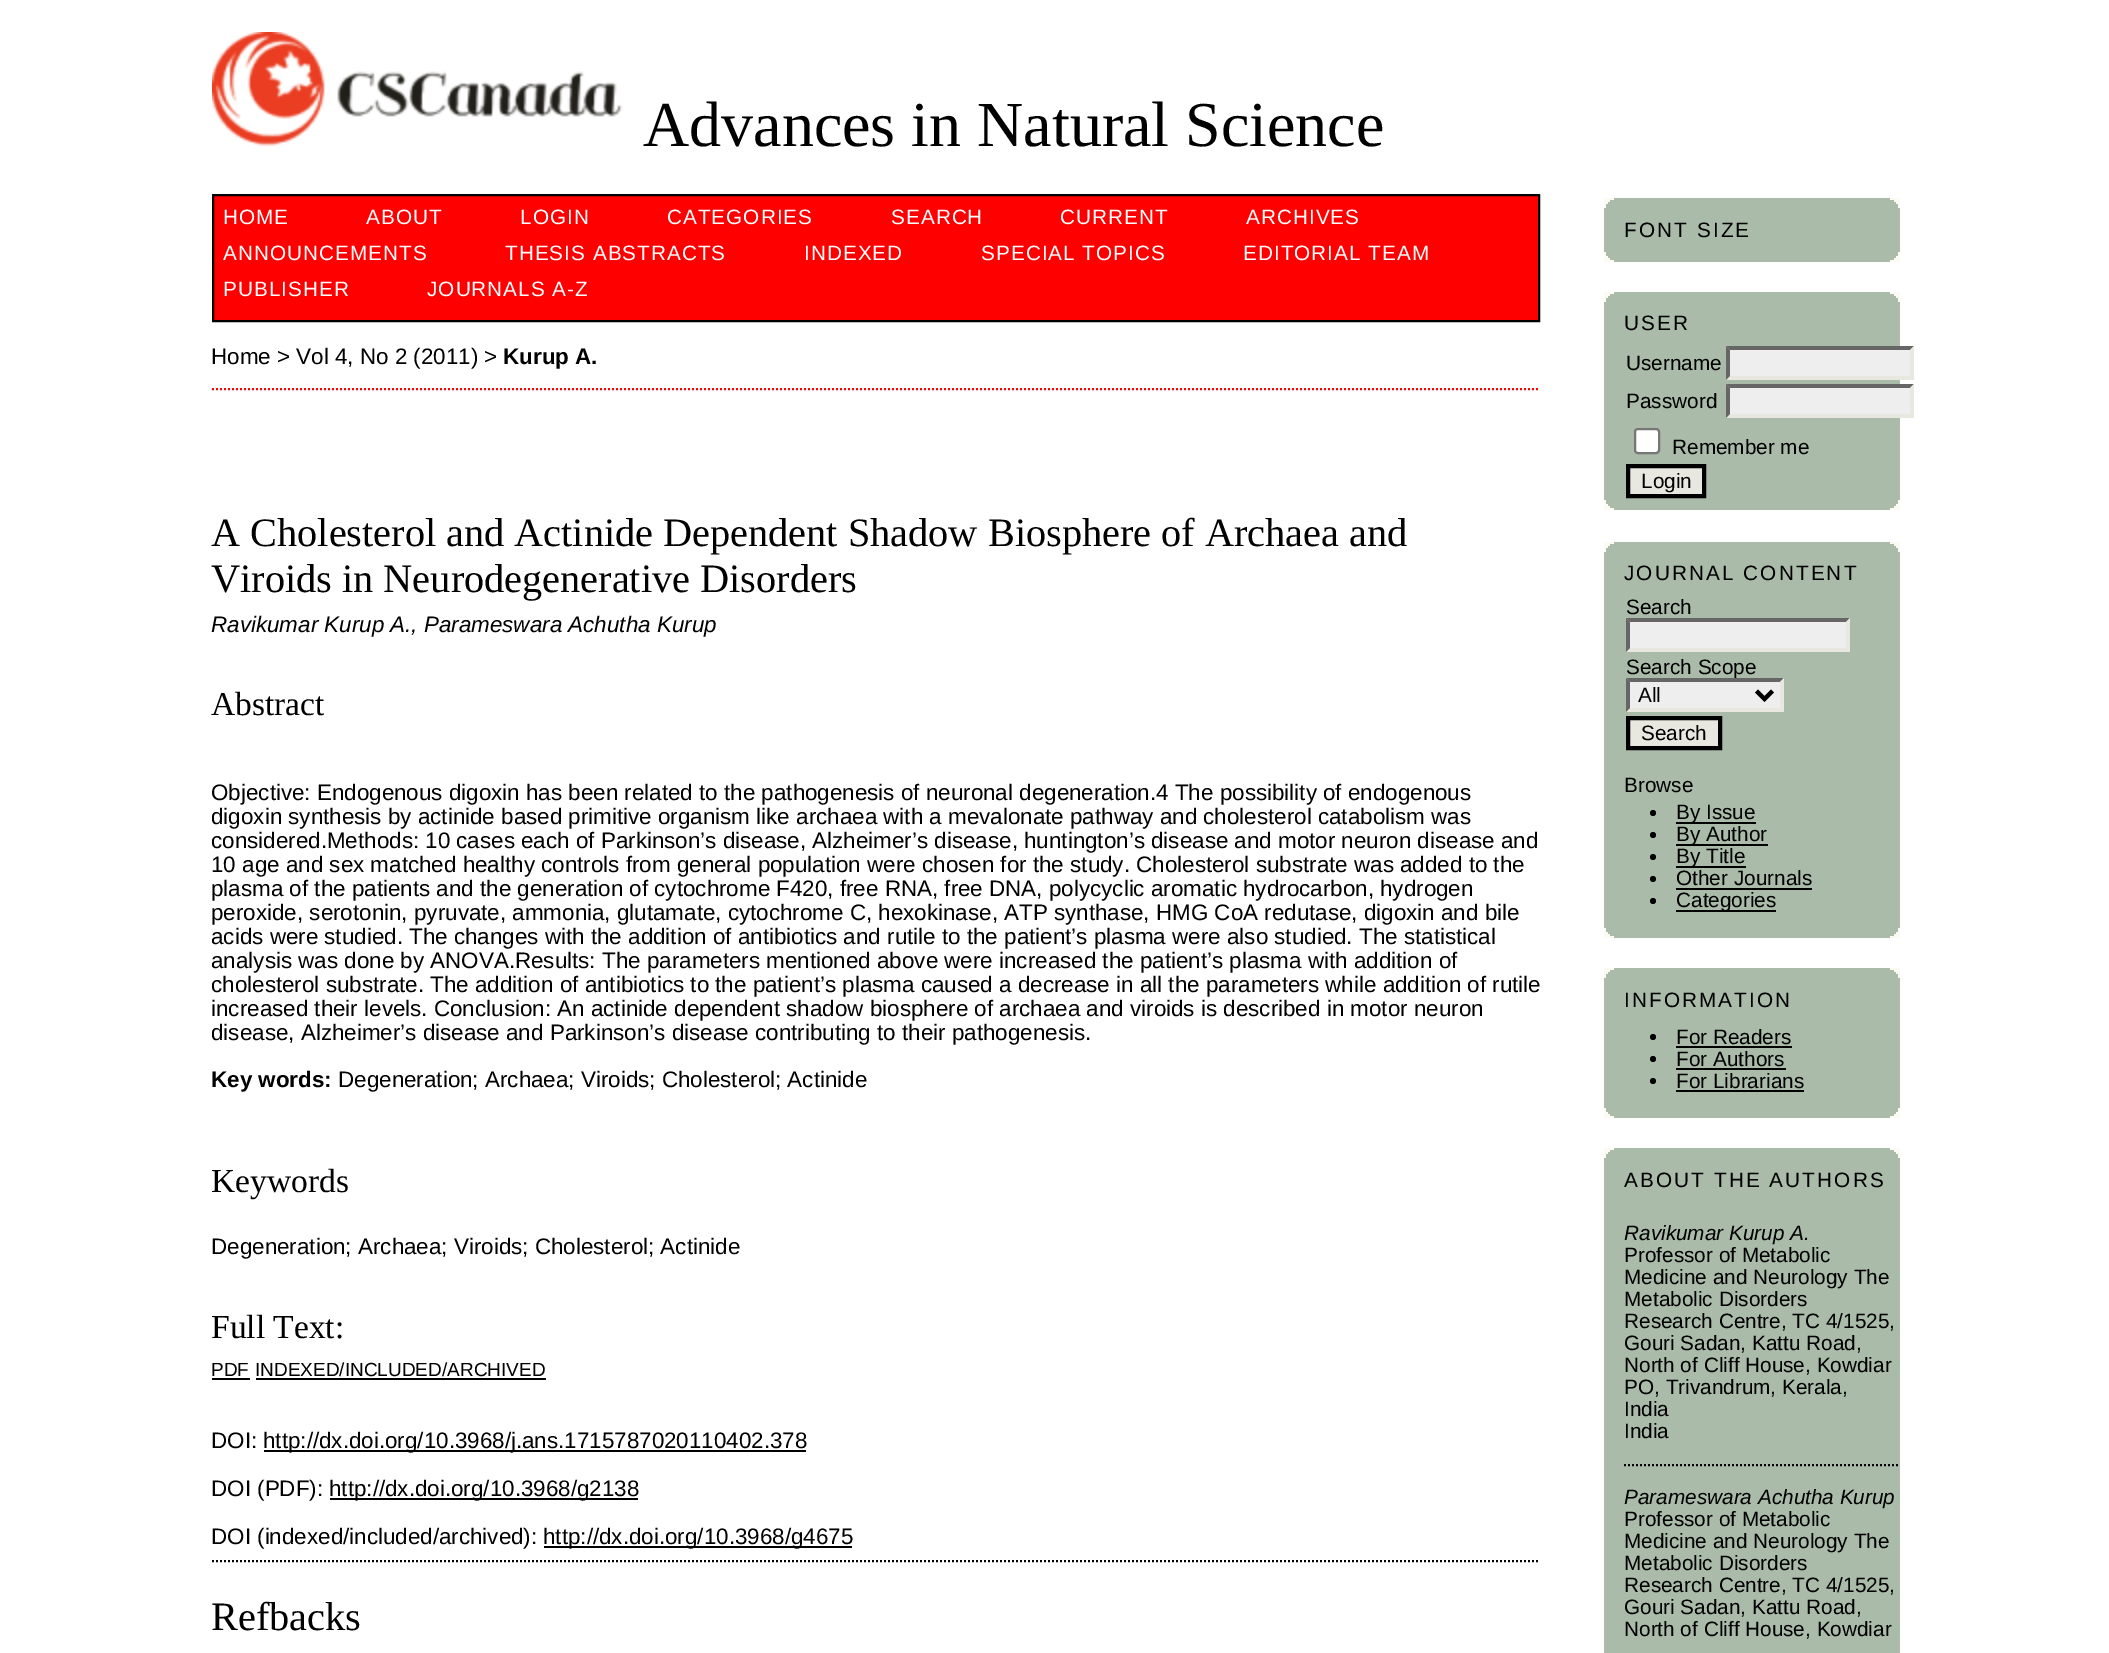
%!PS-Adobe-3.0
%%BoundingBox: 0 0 2109 1653
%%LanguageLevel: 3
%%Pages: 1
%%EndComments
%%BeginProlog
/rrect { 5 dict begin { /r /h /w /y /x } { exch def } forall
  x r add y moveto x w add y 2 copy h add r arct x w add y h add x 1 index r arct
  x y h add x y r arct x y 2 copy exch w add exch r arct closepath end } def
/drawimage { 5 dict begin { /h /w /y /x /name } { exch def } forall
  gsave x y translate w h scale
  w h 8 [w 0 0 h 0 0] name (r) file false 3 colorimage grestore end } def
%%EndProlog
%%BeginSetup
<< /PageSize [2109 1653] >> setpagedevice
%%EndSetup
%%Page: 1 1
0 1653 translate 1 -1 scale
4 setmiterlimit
1 setgray
0 0 2109 1653 rectfill
(images/1.raw) 212 32 411 114 drawimage
1 0 0 setrgbcolor
newpath 213 195 moveto 1539 195 lineto 1539 321 lineto 213 321 lineto closepath gsave fill grestore
0 setgray
2 setlinewidth
stroke
1 0 0 setrgbcolor
[2 2] 0 setdash
newpath 212 389 moveto 1540 389 lineto stroke
0 setgray
212 1378 38 2 rectfill
256 1378 290 2 rectfill
264 1450 542 2 rectfill
330 1498 308 2 rectfill
544 1546 308 2 rectfill
newpath 212 1561 moveto 1540 1561 lineto stroke
0.667 0.733 0.667 setrgbcolor
1604 208 296 44 rectfill
0.984 0.984 0.953 setrgbcolor
1604 198 296 10 rectfill
0.667 0.733 0.667 setrgbcolor
1614 198 276 2 rectfill
1610 200 284 2 rectfill
1608 202 288 2 rectfill
1606 204 292 4 rectfill
0.984 0.984 0.953 setrgbcolor
1604 252 296 10 rectfill
0.667 0.733 0.667 setrgbcolor
1606 252 292 4 rectfill
1608 256 288 2 rectfill
1610 258 284 2 rectfill
1614 260 276 2 rectfill
1604 302 296 198 rectfill
0.984 0.984 0.953 setrgbcolor
1604 292 296 10 rectfill
0.667 0.733 0.667 setrgbcolor
1614 292 276 2 rectfill
1610 294 284 2 rectfill
1608 296 288 2 rectfill
1606 298 292 4 rectfill
0.933 setgray
1726 346 188 34 rectfill
0.4 setgray
newpath 1726 346 moveto 1914 346 lineto 1910 350 lineto 1730 350 lineto closepath fill
0.91 0.91 0.882 setrgbcolor
newpath 1914 346 moveto 1914 380 lineto 1910 376 lineto 1910 350 lineto closepath fill
newpath 1914 380 moveto 1726 380 lineto 1730 376 lineto 1910 376 lineto closepath fill
0.4 setgray
newpath 1726 380 moveto 1726 346 lineto 1730 350 lineto 1730 376 lineto closepath fill
0.933 setgray
1726 384 188 34 rectfill
0.4 setgray
newpath 1726 384 moveto 1914 384 lineto 1910 388 lineto 1730 388 lineto closepath fill
0.91 0.91 0.882 setrgbcolor
newpath 1914 384 moveto 1914 418 lineto 1910 414 lineto 1910 388 lineto closepath fill
newpath 1914 418 moveto 1726 418 lineto 1730 414 lineto 1910 414 lineto closepath fill
0.4 setgray
newpath 1726 418 moveto 1726 384 lineto 1730 388 lineto 1730 414 lineto closepath fill
1 setgray
1635 429 24 24 3 rrect gsave fill grestore
0.463 setgray
[] 0 setdash
stroke
0.91 0.91 0.882 setrgbcolor
newpath 1628 466 moveto 1704 466 lineto 1704 496 lineto 1628 496 lineto closepath gsave fill grestore
0 setgray
4 setlinewidth
stroke
0.984 0.984 0.953 setrgbcolor
1604 500 296 10 rectfill
0.667 0.733 0.667 setrgbcolor
1606 500 292 4 rectfill
1608 504 288 2 rectfill
1610 506 284 2 rectfill
1614 508 276 2 rectfill
1604 552 296 376 rectfill
0.984 0.984 0.953 setrgbcolor
1604 542 296 10 rectfill
0.667 0.733 0.667 setrgbcolor
1614 542 276 2 rectfill
1610 544 284 2 rectfill
1608 546 288 2 rectfill
1606 548 292 4 rectfill
0.933 setgray
1626 618 224 34 rectfill
0.4 setgray
newpath 1626 618 moveto 1850 618 lineto 1846 622 lineto 1630 622 lineto closepath fill
0.91 0.91 0.882 setrgbcolor
newpath 1850 618 moveto 1850 652 lineto 1846 648 lineto 1846 622 lineto closepath fill
newpath 1850 652 moveto 1626 652 lineto 1630 648 lineto 1846 648 lineto closepath fill
0.4 setgray
newpath 1626 652 moveto 1626 618 lineto 1630 622 lineto 1630 648 lineto closepath fill
0.91 0.91 0.882 setrgbcolor
newpath 1628 718 moveto 1720 718 lineto 1720 748 lineto 1628 748 lineto closepath gsave fill grestore
0 setgray
stroke
newpath 1653 813 3 0 360 arc closepath fill
1676 822 80 2 rectfill
newpath 1653 835 3 0 360 arc closepath fill
1676 844 92 2 rectfill
newpath 1653 857 3 0 360 arc closepath fill
1676 866 70 2 rectfill
newpath 1653 879 3 0 360 arc closepath fill
1676 888 136 2 rectfill
newpath 1653 901 3 0 360 arc closepath fill
1676 910 100 2 rectfill
0.984 0.984 0.953 setrgbcolor
1604 928 296 10 rectfill
0.667 0.733 0.667 setrgbcolor
1606 928 292 4 rectfill
1608 932 288 2 rectfill
1610 934 284 2 rectfill
1614 936 276 2 rectfill
1604 978 296 130 rectfill
0.984 0.984 0.953 setrgbcolor
1604 968 296 10 rectfill
0.667 0.733 0.667 setrgbcolor
1614 968 276 2 rectfill
1610 970 284 2 rectfill
1608 972 288 2 rectfill
1606 974 292 4 rectfill
0 setgray
newpath 1653 1037 3 0 360 arc closepath fill
1676 1046 116 2 rectfill
newpath 1653 1059 3 0 360 arc closepath fill
1676 1068 110 2 rectfill
newpath 1653 1081 3 0 360 arc closepath fill
1676 1090 128 2 rectfill
0.984 0.984 0.953 setrgbcolor
1604 1108 296 10 rectfill
0.667 0.733 0.667 setrgbcolor
1606 1108 292 4 rectfill
1608 1112 288 2 rectfill
1610 1114 284 2 rectfill
1614 1116 276 2 rectfill
1604 1158 296 495 rectfill
0.984 0.984 0.953 setrgbcolor
1604 1148 296 10 rectfill
0.667 0.733 0.667 setrgbcolor
1614 1148 276 2 rectfill
1610 1150 284 2 rectfill
1608 1152 288 2 rectfill
1606 1154 292 4 rectfill
0 setgray
2 setlinewidth
[2 2] 0 setdash
newpath 1624 1465 moveto 1900 1465 lineto stroke
/LiberationSerif-Regular [64 0 0 -64 0 0] selectfont
643 146 moveto (Advances in Natural Science) show
/LiberationSans-Regular [20.75 0 0 -20.75 0 0] selectfont
1 setgray
223 224 moveto 1 0 (HOME) ashow
366 224 moveto 1 0 (ABOUT) ashow
520 224 moveto 1 0 (LOGIN) ashow
667 224 moveto 1 0 (CATEGORIES) ashow
891 224 moveto 1 0 (SEARCH) ashow
1060 224 moveto 1 0 (CURRENT) ashow
1246 224 moveto 1 0 (ARCHIVES) ashow
223 260 moveto 1 0 (ANNOUNCEMENTS) ashow
505 260 moveto 1 0 (THESIS ABSTRACTS) ashow
804 260 moveto 1 0 (INDEXED) ashow
981 260 moveto 1 0 (SPECIAL TOPICS) ashow
1243 260 moveto 1 0 (EDITORIAL TEAM) ashow
223 296 moveto 1 0 (PUBLISHER) ashow
427 296 moveto 1 0 (JOURNALS A-Z) ashow
/LiberationSans-Regular [22.4 0 0 -22.4 0 0] selectfont
0 setgray
211 364 moveto (Home > Vol 4, No 2 \(2011\) >) show
/LiberationSans-Bold [22.4 0 0 -22.4 0 0] selectfont
503 364 moveto (Kurup A.) show
/LiberationSerif-Regular [40.3 0 0 -40.3 0 0] selectfont
211 546 moveto (A Cholesterol and Actinide Dependent Shadow Biosphere of Archaea and) show
211 592 moveto (Viroids in Neurodegenerative Disorders) show
/LiberationSans-Italic [22.4 0 0 -22.4 0 0] selectfont
211 632 moveto (Ravikumar Kurup A., Parameswara Achutha Kurup) show
/LiberationSerif-Regular [33.5 0 0 -33.5 0 0] selectfont
211 715 moveto (Abstract) show
/LiberationSans-Regular [22.4 0 0 -22.4 0 0] selectfont
211 800 moveto (Objective: Endogenous digoxin has been related to the pathogenesis of neuronal degeneration.4 The possibility of endogenous) show
211 824 moveto (digoxin synthesis by actinide based primitive organism like archaea with a mevalonate pathway and cholesterol catabolism was) show
211 848 moveto (considered.Methods: 10 cases each of Parkinson’s disease, Alzheimer’s disease, huntington’s disease and motor neuron disease and) show
211 872 moveto (10 age and sex matched healthy controls from general population were chosen for the study. Cholesterol substrate was added to the) show
211 896 moveto (plasma of the patients and the generation of cytochrome F420, free RNA, free DNA, polycyclic aromatic hydrocarbon, hydrogen) show
211 920 moveto (peroxide, serotonin, pyruvate, ammonia, glutamate, cytochrome C, hexokinase, ATP synthase, HMG CoA redutase, digoxin and bile) show
211 944 moveto (acids were studied. The changes with the addition of antibiotics and rutile to the patient’s plasma were also studied. The statistical) show
211 968 moveto (analysis was done by ANOVA.Results: The parameters mentioned above were increased the patient’s plasma with addition of) show
211 992 moveto (cholesterol substrate. The addition of antibiotics to the patient’s plasma caused a decrease in all the parameters while addition of rutile) show
211 1016 moveto (increased their levels. Conclusion: An actinide dependent shadow biosphere of archaea and viroids is described in motor neuron) show
211 1040 moveto (disease, Alzheimer’s disease and Parkinson’s disease contributing to their pathogenesis.) show
/LiberationSans-Bold [22.4 0 0 -22.4 0 0] selectfont
211 1087 moveto (Key words:) show
/LiberationSans-Regular [22.4 0 0 -22.4 0 0] selectfont
338 1087 moveto (Degeneration; Archaea; Viroids; Cholesterol; Actinide) show
/LiberationSerif-Regular [33.5 0 0 -33.5 0 0] selectfont
211 1192 moveto (Keywords) show
/LiberationSans-Regular [22.4 0 0 -22.4 0 0] selectfont
211 1254 moveto (Degeneration; Archaea; Viroids; Cholesterol; Actinide) show
/LiberationSerif-Regular [33.5 0 0 -33.5 0 0] selectfont
211 1338 moveto (Full Text:) show
/LiberationSans-Regular [19 0 0 -19 0 0] selectfont
211 1376 moveto (PDF) show
255 1376 moveto (INDEXED/INCLUDED/ARCHIVED) show
/LiberationSans-Regular [22.4 0 0 -22.4 0 0] selectfont
211 1448 moveto (DOI:) show
263 1448 moveto (http://dx.doi.org/10.3968/j.ans.1715787020110402.378) show
211 1496 moveto (DOI \(PDF\):) show
329 1496 moveto (http://dx.doi.org/10.3968/g2138) show
211 1544 moveto (DOI \(indexed/included/archived\):) show
543 1544 moveto (http://dx.doi.org/10.3968/g4675) show
/LiberationSerif-Regular [40.3 0 0 -40.3 0 0] selectfont
211 1630 moveto (Refbacks) show
/LiberationSans-Regular [20.75 0 0 -20.75 0 0] selectfont
1624 237 moveto 2.1 0 (FONT SIZE) ashow
1624 330 moveto 2.1 0 (USER) ashow
1626 370 moveto (Username) show
1626 408 moveto (Password) show
1672 454 moveto (Remember me) show
1641 488 moveto (Login) show
1624 580 moveto 2.1 0 (JOURNAL CONTENT) ashow
1626 614 moveto (Search) show
1626 674 moveto (Search Scope) show
0.933 setgray
1626 678 158 34 rectfill
0.4 setgray
newpath 1626 678 moveto 1784 678 lineto 1780 682 lineto 1630 682 lineto closepath fill
0.91 0.91 0.882 setrgbcolor
newpath 1784 678 moveto 1784 712 lineto 1780 708 lineto 1780 682 lineto closepath fill
newpath 1784 712 moveto 1626 712 lineto 1630 708 lineto 1780 708 lineto closepath fill
0.4 setgray
newpath 1626 712 moveto 1626 678 lineto 1630 682 lineto 1630 708 lineto closepath fill
0 setgray
4 setlinewidth
[] 0 setdash
newpath 1756.5 691 moveto 1764.5 699 lineto 1772.5 691 lineto stroke
1638 702 moveto (All) show
1641 740 moveto (Search) show
1624 792 moveto (Browse) show
1676 819 moveto (By Issue) show
1676 841 moveto (By Author) show
1676 863 moveto (By Title) show
1676 885 moveto (Other Journals) show
1676 907 moveto (Categories) show
1624 1007 moveto 2.1 0 (INFORMATION) ashow
1676 1044 moveto (For Readers) show
1676 1066 moveto (For Authors) show
1676 1088 moveto (For Librarians) show
1624 1187 moveto 2.1 0 (ABOUT THE AUTHORS) ashow
/LiberationSans-Italic [20.75 0 0 -20.75 0 0] selectfont
1624 1240 moveto (Ravikumar Kurup A.) show
/LiberationSans-Regular [20.75 0 0 -20.75 0 0] selectfont
1624 1262 moveto (Professor of Metabolic) show
1624 1284 moveto (Medicine and Neurology The) show
1624 1306 moveto (Metabolic Disorders) show
1624 1328 moveto (Research Centre, TC 4/1525,) show
1624 1350 moveto (Gouri Sadan, Kattu Road,) show
1624 1372 moveto (North of Cliff House, Kowdiar) show
1624 1394 moveto (PO, Trivandrum, Kerala,) show
1624 1416 moveto (India) show
1624 1438 moveto (India) show
/LiberationSans-Italic [20.75 0 0 -20.75 0 0] selectfont
1624 1504 moveto (Parameswara Achutha Kurup) show
/LiberationSans-Regular [20.75 0 0 -20.75 0 0] selectfont
1624 1526 moveto (Professor of Metabolic) show
1624 1548 moveto (Medicine and Neurology The) show
1624 1570 moveto (Metabolic Disorders) show
1624 1592 moveto (Research Centre, TC 4/1525,) show
1624 1614 moveto (Gouri Sadan, Kattu Road,) show
1624 1636 moveto (North of Cliff House, Kowdiar) show
showpage
%%EOF
